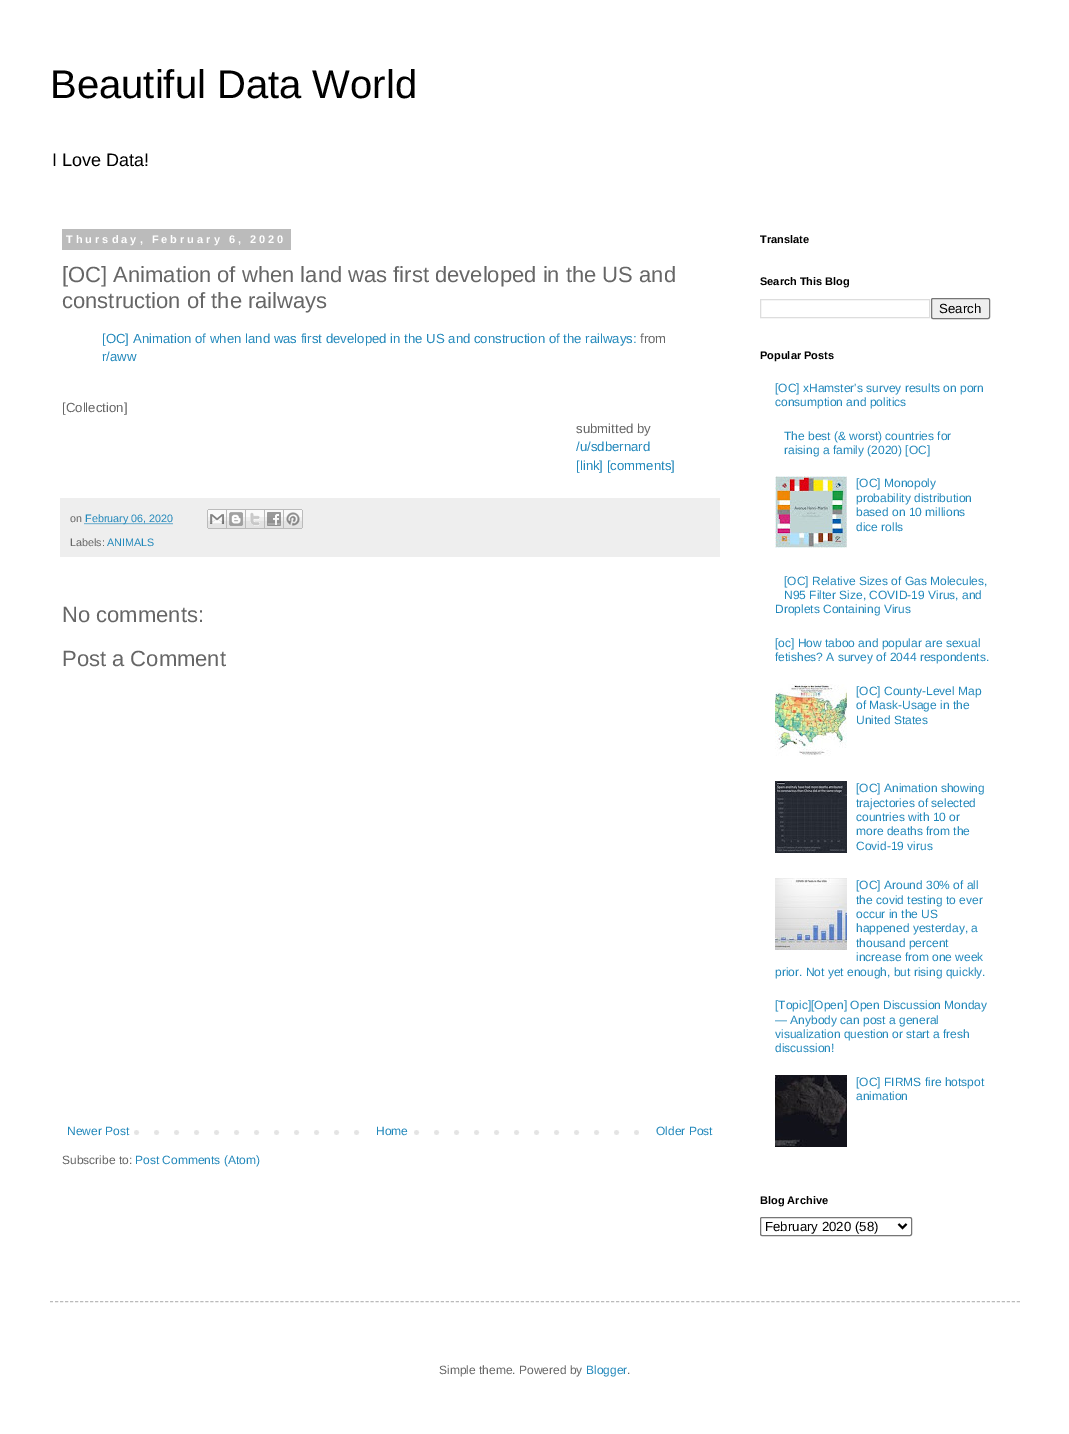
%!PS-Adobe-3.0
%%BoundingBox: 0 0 1069 1434
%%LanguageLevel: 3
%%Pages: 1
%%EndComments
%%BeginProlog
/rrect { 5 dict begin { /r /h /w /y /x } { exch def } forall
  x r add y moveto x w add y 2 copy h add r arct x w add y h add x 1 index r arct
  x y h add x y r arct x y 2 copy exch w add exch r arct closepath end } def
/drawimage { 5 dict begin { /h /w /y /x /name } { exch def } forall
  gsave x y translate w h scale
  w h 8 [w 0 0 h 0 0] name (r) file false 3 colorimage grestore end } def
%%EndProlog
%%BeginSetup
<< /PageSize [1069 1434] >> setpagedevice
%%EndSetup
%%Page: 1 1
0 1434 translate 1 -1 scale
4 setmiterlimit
1 setgray
0 0 1069 1434 rectfill
0.733 setgray
62 229 229 21 rectfill
0.933 setgray
60 498 660 59 rectfill
0.133 0.533 0.733 setrgbcolor
[1 1] 0 setdash
newpath 84.5 523.5 moveto 173 523.5 lineto stroke
(images/1.raw) 207 509 20 20 drawimage
(images/2.raw) 227 509 19 20 drawimage
(images/3.raw) 246 509 19 20 drawimage
(images/4.raw) 265 509 19 20 drawimage
(images/5.raw) 284 509 19 20 drawimage
(images/6.raw) 134 1130 505 5 drawimage
1 setgray
374 1130 26 5 rectfill
0.867 setgray
[] 0 setdash
760.5 299.5 169 18 rectstroke
0.937 setgray
931.5 298.5 58 20 1.5 rrect gsave fill grestore
0.463 setgray
stroke
(images/7.raw) 775 476 72 72 drawimage
(images/8.raw) 775 684 72 72 drawimage
(images/9.raw) 775 781 72 72 drawimage
(images/10.raw) 775 878 72 72 drawimage
(images/11.raw) 775 1075 72 72 drawimage
760.5 1217.5 151 18 1.5 rrect stroke
0 setgray
2 setlinewidth
newpath 898.5 1224 moveto 902.5 1228 lineto 906.5 1224 lineto stroke
0.733 setgray
1 setlinewidth
[3 2.01] 0 setdash
newpath 50 1301.5 moveto 1020 1301.5 lineto stroke
/LiberationSans-Regular [40 0 0 -40 0 0] selectfont
0 setgray
50 98 moveto (Beautiful Data World) show
/LiberationSans-Regular [18 0 0 -18 0 0] selectfont
52 166 moveto (I Love Data!) show
/LiberationSans-Bold [11 0 0 -11 0 0] selectfont
1 setgray
66 243 moveto 3 0 (Thursday, February 6, 2020) ashow
/LiberationSans-Regular [22 0 0 -22 0 0] selectfont
0.4 setgray
62 282 moveto ([OC] Animation of when land was first developed in the US and) show
62 308 moveto (construction of the railways) show
/LiberationSans-Regular [13.2 0 0 -13.2 0 0] selectfont
0.133 0.533 0.733 setrgbcolor
102 343 moveto ([OC] Animation of when land was first developed in the US and construction of the railways:) show
0.4 setgray
640 343 moveto (from) show
0.133 0.533 0.733 setrgbcolor
102 361 moveto (r/aww) show
0.4 setgray
62 412 moveto ([Collection]) show
576 433 moveto (submitted by) show
0.133 0.533 0.733 setrgbcolor
576 451 moveto (/u/sdbernard) show
576 470 moveto ([link] [comments]) show
/LiberationSans-Regular [10.75 0 0 -10.75 0 0] selectfont
0.4 setgray
70 522 moveto (on) show
0.133 0.533 0.733 setrgbcolor
85 522 moveto (February 06, 2020) show
0.4 setgray
70 546 moveto (Labels:) show
0.133 0.533 0.733 setrgbcolor
107 546 moveto (ANIMALS) show
/LiberationSans-Regular [22 0 0 -22 0 0] selectfont
0.4 setgray
62 622 moveto (No comments:) show
62 666 moveto (Post a Comment) show
/LiberationSans-Regular [12 0 0 -12 0 0] selectfont
0.133 0.533 0.733 setrgbcolor
67 1135 moveto (Newer Post) show
376 1135 moveto (Home) show
656 1135 moveto (Older Post) show
0.4 setgray
62 1164 moveto (Subscribe to:) show
0.133 0.533 0.733 setrgbcolor
135 1164 moveto (Post Comments \(Atom\)) show
/LiberationSans-Bold [11 0 0 -11 0 0] selectfont
0 setgray
760 243 moveto (Translate) show
760 285 moveto (Search This Blog) show
/LiberationSans-Regular [13.25 0 0 -13.25 0 0] selectfont
939 313 moveto (Search) show
/LiberationSans-Bold [11 0 0 -11 0 0] selectfont
760 359 moveto (Popular Posts) show
/LiberationSans-Regular [12 0 0 -12 0 0] selectfont
0.133 0.533 0.733 setrgbcolor
775 392 moveto ([OC] xHamster's survey results on porn) show
775 406 moveto (consumption and politics) show
784 440 moveto (The best \(& worst\) countries for) show
784 454 moveto (raising a family \(2020\) [OC]) show
856 487 moveto ([OC] Monopoly) show
856 502 moveto (probability distribution) show
856 516 moveto (based on 10 millions) show
856 531 moveto (dice rolls) show
784 585 moveto ([OC] Relative Sizes of Gas Molecules,) show
784 599 moveto (N95 Filter Size, COVID-19 Virus, and) show
775 613 moveto (Droplets Containing Virus) show
775 647 moveto ([oc] How taboo and popular are sexual) show
775 661 moveto (fetishes? A survey of 2044 respondents.) show
856 695 moveto ([OC] County-Level Map) show
856 709 moveto (of Mask-Usage in the) show
856 724 moveto (United States) show
856 792 moveto ([OC] Animation showing) show
856 807 moveto (trajectories of selected) show
856 821 moveto (countries with 10 or) show
856 835 moveto (more deaths from the) show
856 850 moveto (Covid-19 virus) show
856 889 moveto ([OC] Around 30% of all) show
856 904 moveto (the covid testing to ever) show
856 918 moveto (occur in the US) show
856 932 moveto (happened yesterday, a) show
856 947 moveto (thousand percent) show
856 961 moveto (increase from one week) show
775 976 moveto (prior. Not yet enough, but rising quickly.) show
775 1009 moveto ([Topic][Open] Open Discussion Monday) show
775 1024 moveto (— Anybody can post a general) show
775 1038 moveto (visualization question or start a fresh) show
775 1052 moveto (discussion!) show
856 1086 moveto ([OC] FIRMS fire hotspot) show
856 1100 moveto (animation) show
/LiberationSans-Bold [11 0 0 -11 0 0] selectfont
0 setgray
760 1204 moveto (Blog Archive) show
/LiberationSans-Regular [13.25 0 0 -13.25 0 0] selectfont
765 1231 moveto (February 2020 \(58\)) show
/LiberationSans-Regular [12 0 0 -12 0 0] selectfont
0.4 setgray
439 1374 moveto (Simple theme. Powered by) show
0.133 0.533 0.733 setrgbcolor
586 1374 moveto (Blogger) show
0.4 setgray
627 1374 moveto (.) show
showpage
%%EOF
